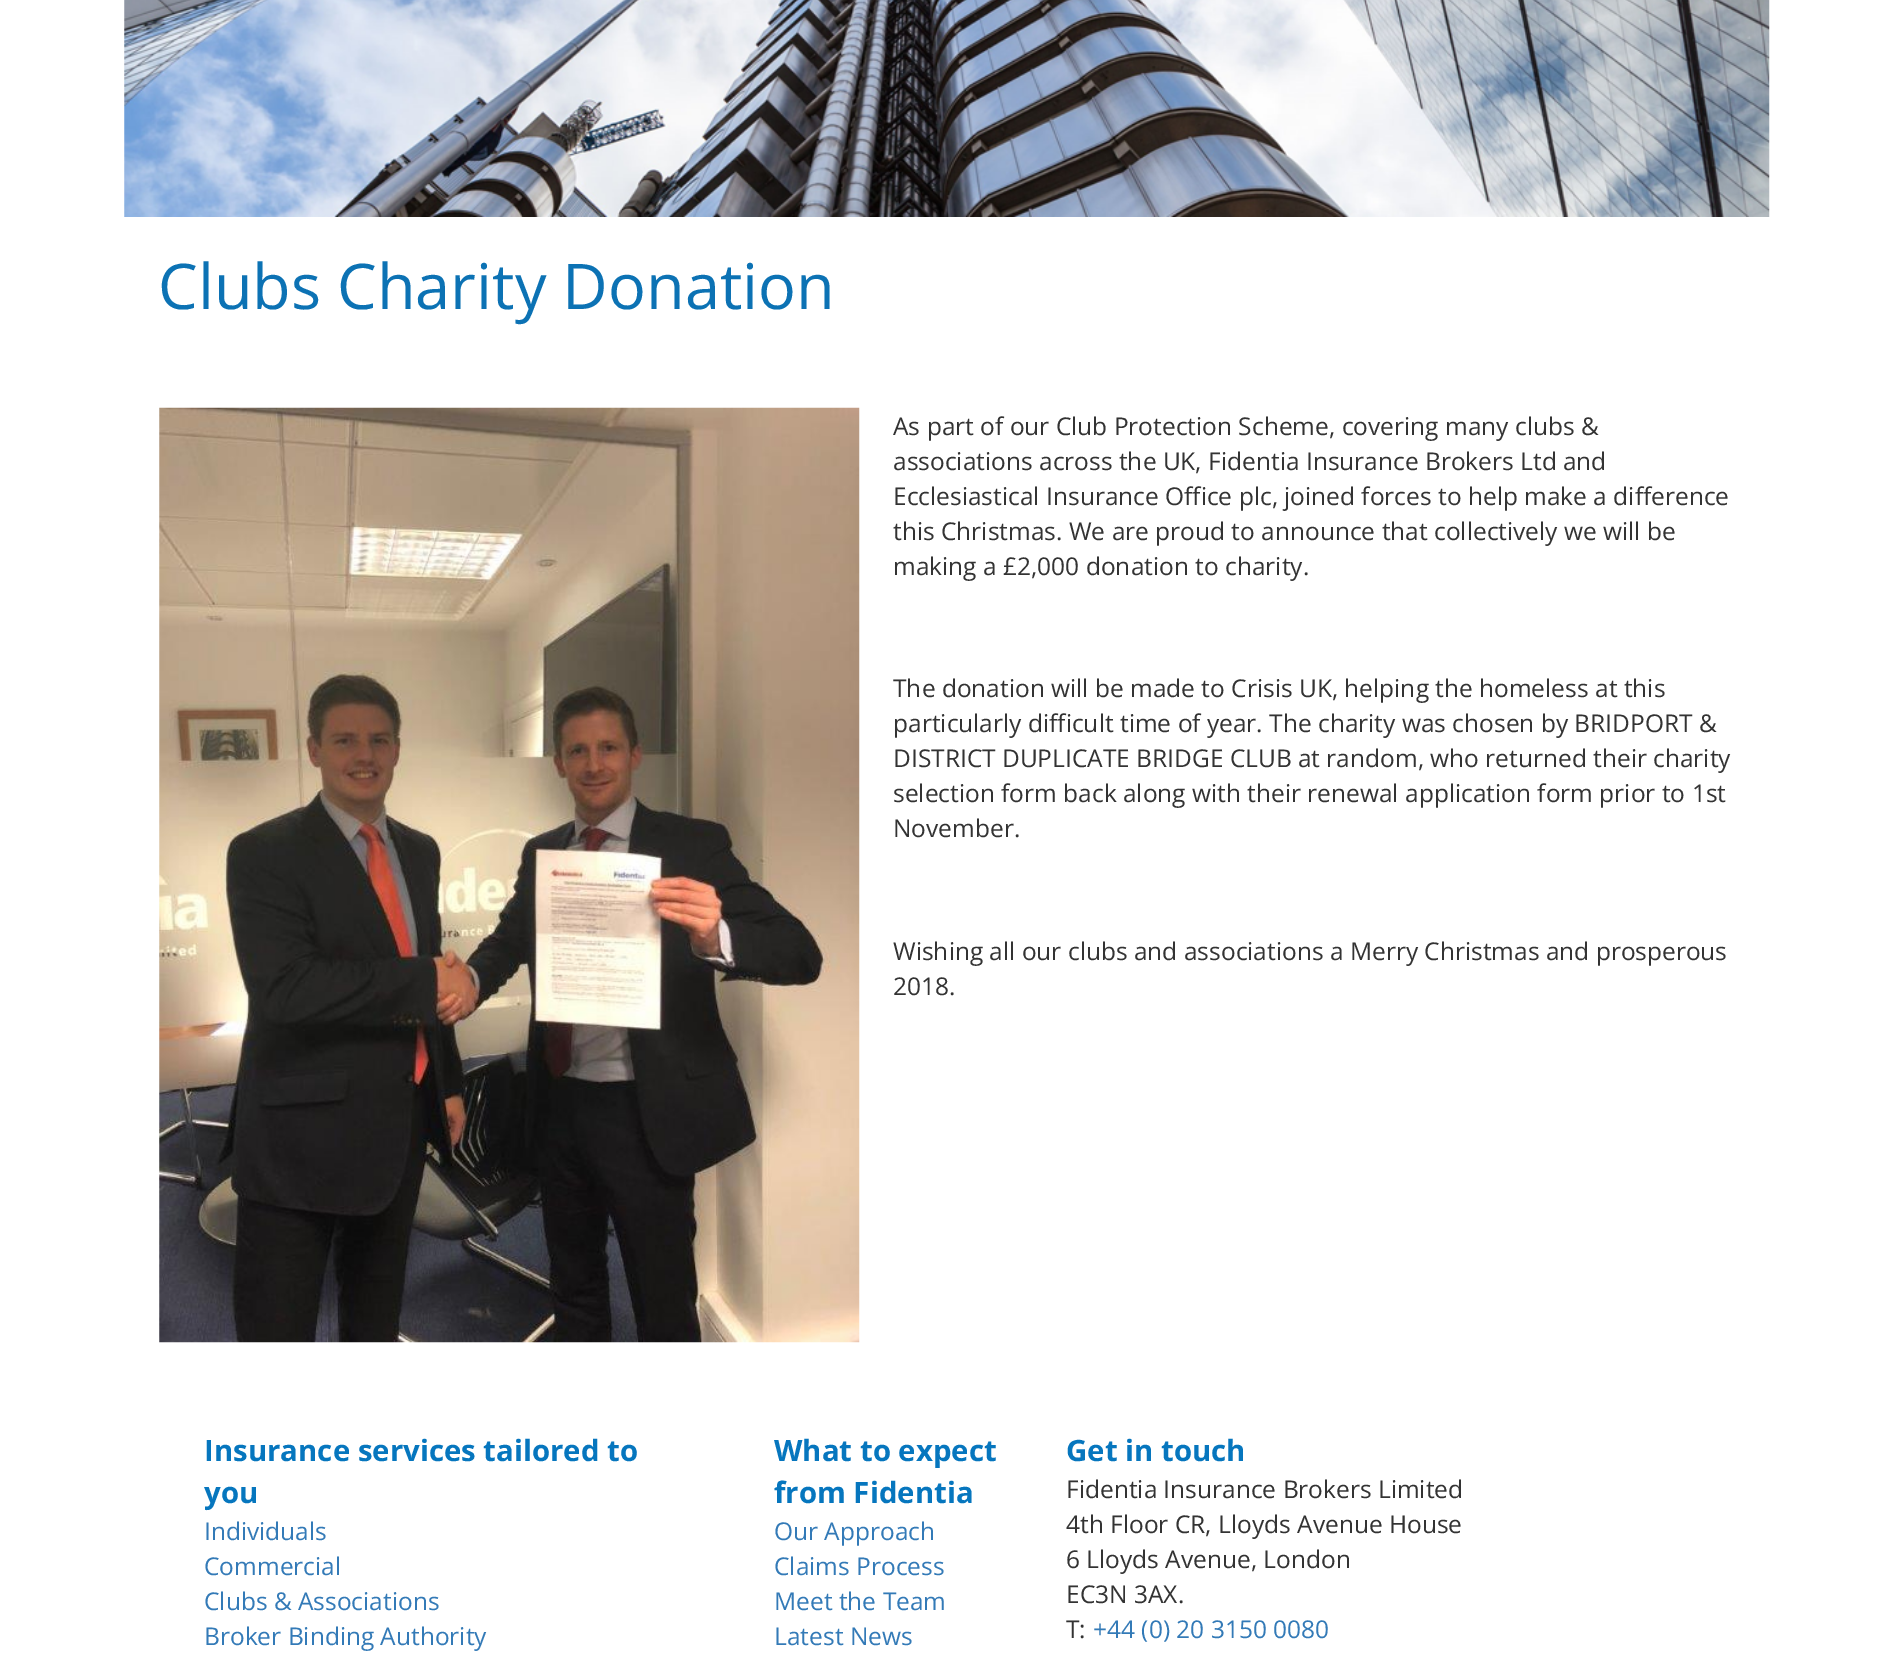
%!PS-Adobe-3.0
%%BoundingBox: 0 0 1891 1660
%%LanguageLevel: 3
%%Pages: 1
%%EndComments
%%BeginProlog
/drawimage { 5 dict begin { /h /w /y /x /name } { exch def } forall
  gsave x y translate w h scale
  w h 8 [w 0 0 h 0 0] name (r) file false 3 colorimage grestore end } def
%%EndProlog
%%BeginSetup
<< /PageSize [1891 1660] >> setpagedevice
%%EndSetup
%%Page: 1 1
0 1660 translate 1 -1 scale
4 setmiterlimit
1 setgray
0 0 1891 1660 rectfill
(images/1.raw) 124 0 1646 217 drawimage
(images/2.raw) 159 407 701 936 drawimage
/OpenSans-Regular [63 0 0 -63 0 0] selectfont
0.047 0.447 0.706 setrgbcolor
158 309 moveto (Clubs Charity Donation) show
/OpenSans-Regular [24.5 0 0 -24.5 0 0] selectfont
0.2 setgray
893 435 moveto (As part of our Club Protection Scheme, covering many clubs &) show
893 470 moveto (associations across the UK, Fidentia Insurance Brokers Ltd and) show
893 505 moveto (Ecclesiastical Insurance Office plc, joined forces to help make a difference) show
893 540 moveto (this Christmas. We are proud to announce that collectively we will be) show
893 575 moveto (making a £2,000 donation to charity.) show
893 697 moveto (The donation will be made to Crisis UK, helping the homeless at this) show
893 732 moveto (particularly difficult time of year. The charity was chosen by BRIDPORT &) show
893 767 moveto (DISTRICT DUPLICATE BRIDGE CLUB at random, who returned their charity) show
893 802 moveto (selection form back along with their renewal application form prior to 1st) show
893 837 moveto (November.) show
893 960 moveto (Wishing all our clubs and associations a Merry Christmas and prosperous) show
893 995 moveto (2018.) show
/OpenSans-Bold [29.4 0 0 -29.4 0 0] selectfont
0.024 0.463 0.745 setrgbcolor
204 1461 moveto (Insurance services tailored to) show
204 1503 moveto (you) show
/OpenSans-Regular [24.5 0 0 -24.5 0 0] selectfont
0.2 0.478 0.718 setrgbcolor
204 1540 moveto (Individuals) show
204 1575 moveto (Commercial) show
204 1610 moveto (Clubs & Associations) show
204 1645 moveto (Broker Binding Authority) show
/OpenSans-Bold [29.4 0 0 -29.4 0 0] selectfont
0.024 0.463 0.745 setrgbcolor
774 1461 moveto (What to expect) show
774 1503 moveto (from Fidentia) show
/OpenSans-Regular [24.5 0 0 -24.5 0 0] selectfont
0.2 0.478 0.718 setrgbcolor
774 1540 moveto (Our Approach) show
774 1575 moveto (Claims Process) show
774 1610 moveto (Meet the Team) show
774 1645 moveto (Latest News) show
/OpenSans-Bold [29.4 0 0 -29.4 0 0] selectfont
0.024 0.463 0.745 setrgbcolor
1066 1461 moveto (Get in touch) show
/OpenSans-Regular [24.5 0 0 -24.5 0 0] selectfont
0.2 setgray
1066 1498 moveto (Fidentia Insurance Brokers Limited) show
1066 1533 moveto (4th Floor CR, Lloyds Avenue House) show
1066 1568 moveto (6 Lloyds Avenue, London) show
1066 1603 moveto (EC3N 3AX.) show
1066 1638 moveto (T:) show
0.2 0.478 0.718 setrgbcolor
1093 1638 moveto (+44 \(0\) 20 3150 0080) show
showpage
%%EOF
